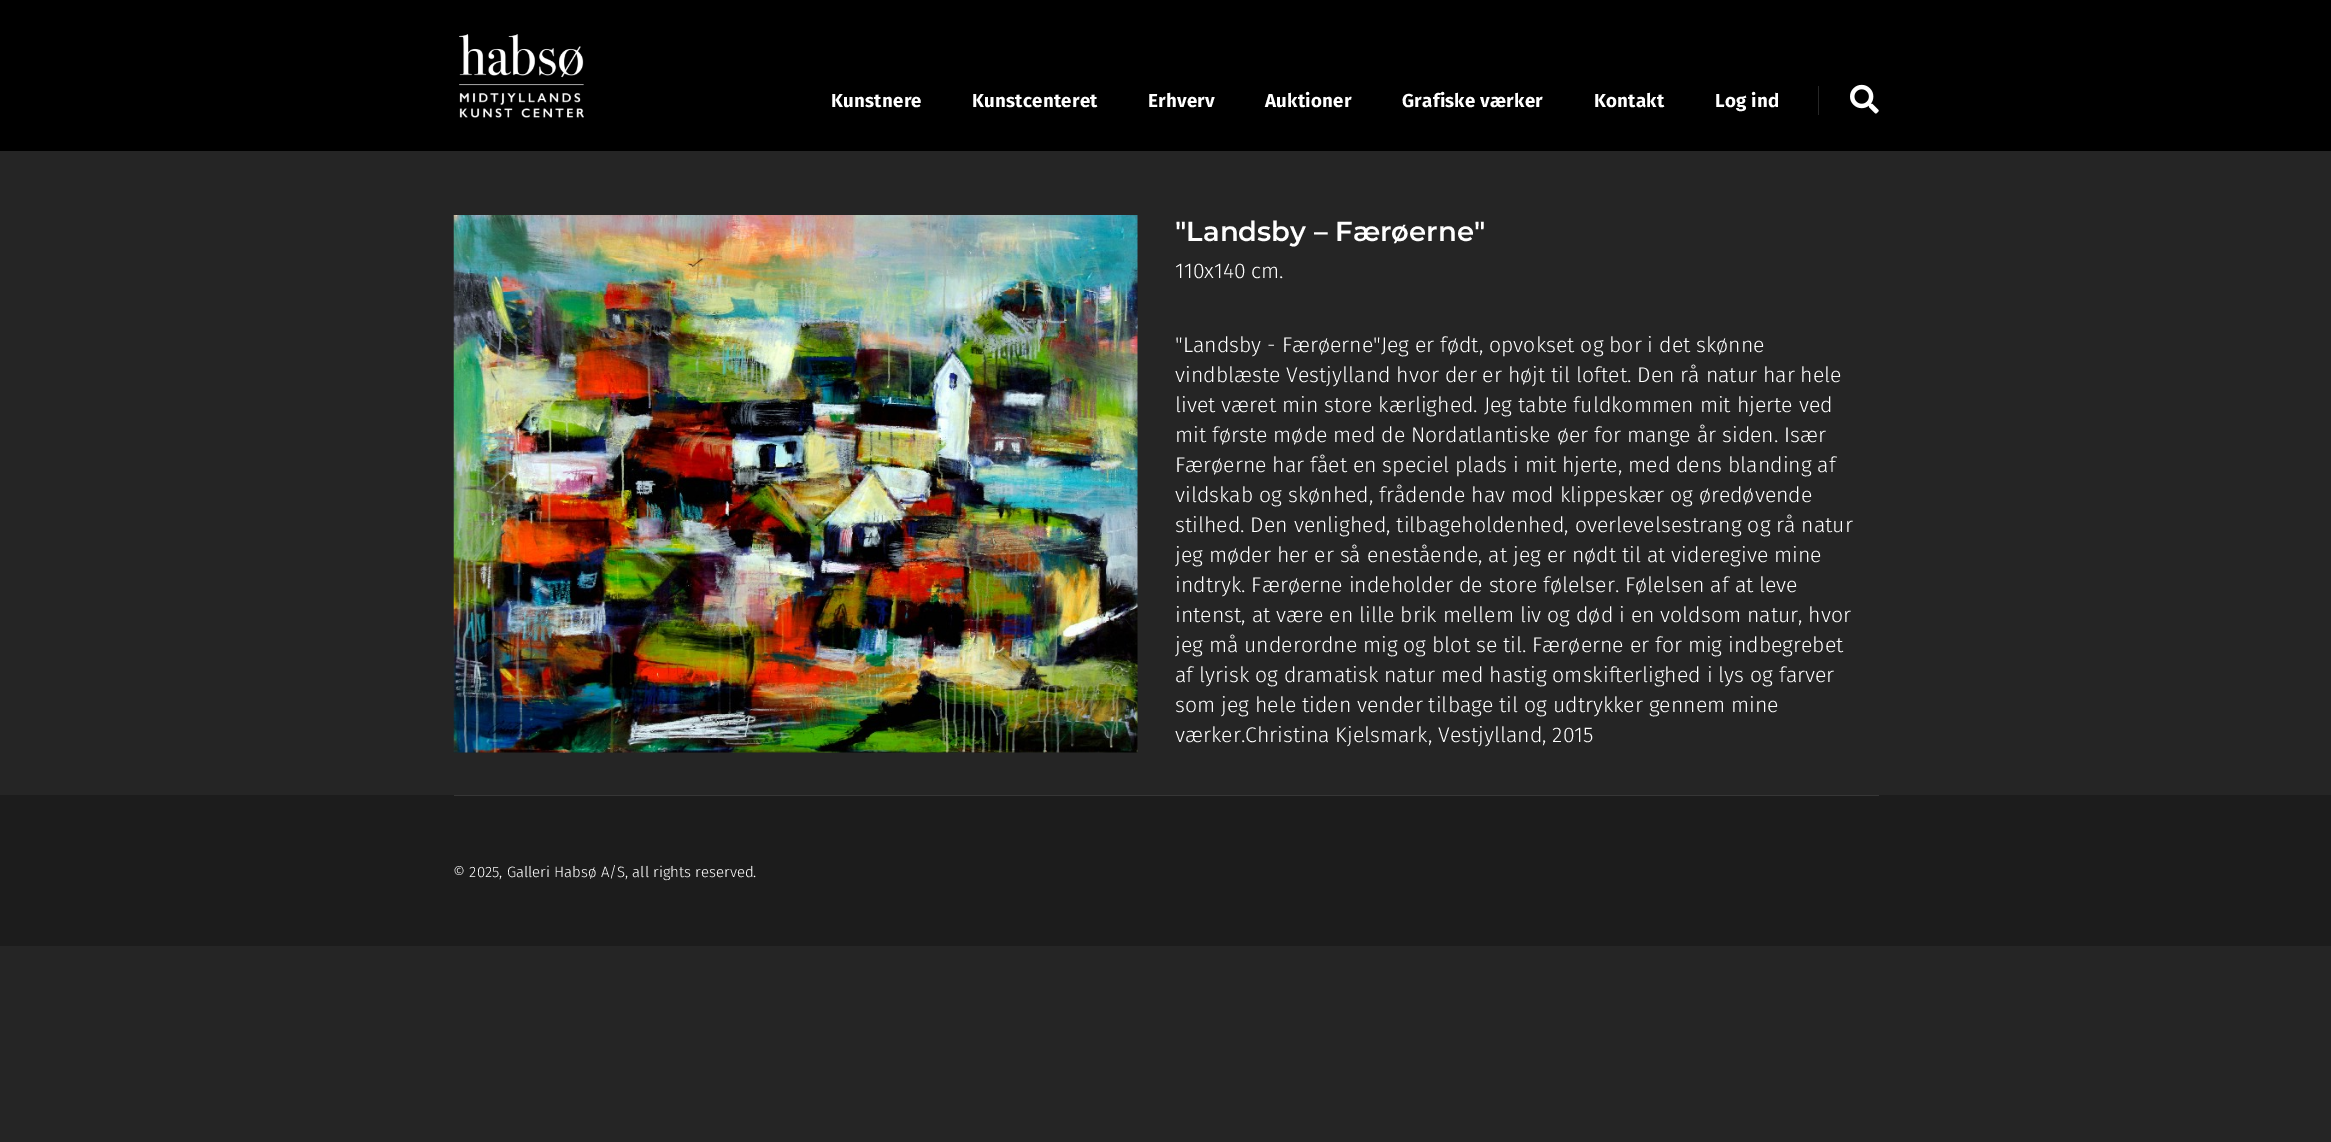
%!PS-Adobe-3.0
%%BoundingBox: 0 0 2331 1142
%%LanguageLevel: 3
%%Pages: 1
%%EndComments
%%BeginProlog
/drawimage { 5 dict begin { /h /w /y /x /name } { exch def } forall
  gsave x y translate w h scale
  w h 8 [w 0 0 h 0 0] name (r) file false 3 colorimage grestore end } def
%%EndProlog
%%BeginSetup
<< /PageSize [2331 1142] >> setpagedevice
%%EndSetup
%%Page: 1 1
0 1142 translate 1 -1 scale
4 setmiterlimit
0.145 setgray
0 0 2331 1142 rectfill
0 setgray
0 0 2331 151 rectfill
(images/1.raw) 459 34 125 84 drawimage
0.149 setgray
1818 86 1 29 rectfill
(images/2.raw) 1850 84 29 30 drawimage
(images/3.raw) 453 215 685 538 drawimage
0.11 setgray
0 795 2331 151 rectfill
0.212 setgray
454 795 1425 1 rectfill
/FiraSans-Bold [18.75 0 0 -18.75 0 0] selectfont
1 setgray
831 107 moveto 0.25 0 (Kunstnere) ashow
972 107 moveto 0.25 0 (Kunstcenteret) ashow
1148 107 moveto 0.25 0 (Erhverv) ashow
1265 107 moveto 0.25 0 (Auktioner) ashow
1402 107 moveto 0.25 0 (Grafiske værker) ashow
1594 107 moveto 0.25 0 (Kontakt) ashow
1715 107 moveto 0.25 0 (Log ind) ashow
/Montserrat-SemiBold [27.5 0 0 -27.5 0 0] selectfont
1175 241 moveto ("Landsby – Færøerne") show
/FiraSans-Light [21.25 0 0 -21.25 0 0] selectfont
1175 278 moveto (110x140 cm.) show
1175 352 moveto ("Landsby - Færøerne"Jeg er født, opvokset og bor i det skønne) show
1175 382 moveto (vindblæste Vestjylland hvor der er højt til loftet. Den rå natur har hele) show
1175 412 moveto (livet været min store kærlighed. Jeg tabte fuldkommen mit hjerte ved) show
1175 442 moveto (mit første møde med de Nordatlantiske øer for mange år siden. Især) show
1175 472 moveto (Færøerne har fået en speciel plads i mit hjerte, med dens blanding af) show
1175 502 moveto (vildskab og skønhed, frådende hav mod klippeskær og øredøvende) show
1175 532 moveto (stilhed. Den venlighed, tilbageholdenhed, overlevelsestrang og rå natur) show
1175 562 moveto (jeg møder her er så enestående, at jeg er nødt til at videregive mine) show
1175 592 moveto (indtryk. Færøerne indeholder de store følelser. Følelsen af at leve) show
1175 622 moveto (intenst, at være en lille brik mellem liv og død i en voldsom natur, hvor) show
1175 652 moveto (jeg må underordne mig og blot se til. Færøerne er for mig indbegrebet) show
1175 682 moveto (af lyrisk og dramatisk natur med hastig omskifterlighed i lys og farver) show
1175 712 moveto (som jeg hele tiden vender tilbage til og udtrykker gennem mine) show
1175 742 moveto (værker.Christina Kjelsmark, Vestjylland, 2015) show
/FiraSans-Light [15 0 0 -15 0 0] selectfont
453 877 moveto (© 2025, Galleri Habsø A/S, all rights reserved.) show
showpage
%%EOF
